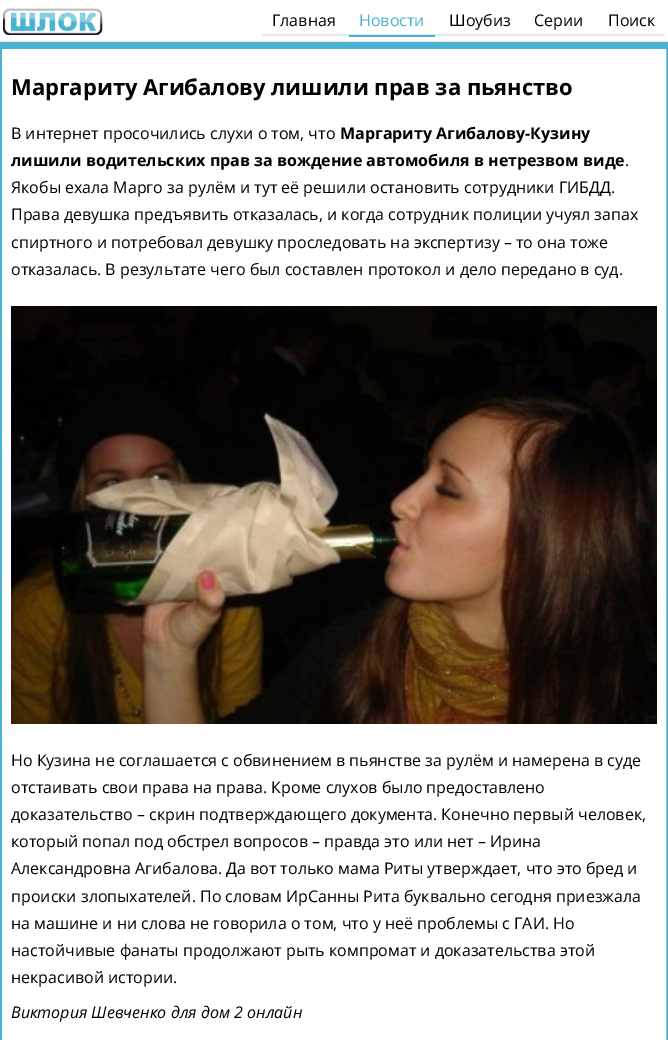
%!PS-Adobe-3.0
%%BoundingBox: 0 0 668 1040
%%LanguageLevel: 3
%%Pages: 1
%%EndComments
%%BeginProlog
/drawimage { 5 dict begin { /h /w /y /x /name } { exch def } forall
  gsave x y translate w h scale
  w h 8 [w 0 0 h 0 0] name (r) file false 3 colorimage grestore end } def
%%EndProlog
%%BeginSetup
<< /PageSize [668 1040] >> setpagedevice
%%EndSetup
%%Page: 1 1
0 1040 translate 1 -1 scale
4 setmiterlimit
0.286 0.702 0.82 setrgbcolor
0 0 668 1040 rectfill
1 setgray
0 0 668 41 rectfill
0.91 setgray
0 41 668 1 rectfill
(images/1.raw) 3 8 100 27 drawimage
262 34 403 2 rectfill
0.286 0.702 0.82 setrgbcolor
349 35 86 2 rectfill
1 setgray
2.5 49.5 663 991 rectstroke
3 50 662 990 rectfill
(images/2.raw) 11 306 646 418 drawimage
/OpenSans-Regular [16 0 0 -16 0 0] selectfont
0 setgray
272 26 moveto (Главная) show
0.286 0.702 0.82 setrgbcolor
359 26 moveto (Новости) show
0 setgray
449 26 moveto (Шоубиз) show
534 26 moveto (Серии) show
608 26 moveto (Поиск) show
/OpenSans-Bold [22 0 0 -22 0 0] selectfont
11 95 moveto (Маргариту Агибалову лишили прав за пьянство) show
/OpenSans-Regular [16 0 0 -16 0 0] selectfont
11 139 moveto (В интернет просочились слухи о том, что) show
/OpenSans-Bold [16 0 0 -16 0 0] selectfont
340 139 moveto (Маргариту Агибалову-Кузину) show
11 166 moveto (лишили водительских прав за вождение автомобиля в нетрезвом виде) show
/OpenSans-Regular [16 0 0 -16 0 0] selectfont
625 166 moveto (.) show
11 193 moveto (Якобы ехала Марго за рулём и тут её решили остановить сотрудники ГИБДД.) show
11 220 moveto (Права девушка предъявить отказалась, и когда сотрудник полиции учуял запах) show
11 248 moveto (спиртного и потребовал девушку проследовать на экспертизу – то она тоже) show
11 275 moveto (отказалась. В результате чего был составлен протокол и дело передано в суд.) show
11 766 moveto (Но Кузина не соглашается с обвинением в пьянстве за рулём и намерена в суде) show
11 793 moveto (отстаивать свои права на права. Кроме слухов было предоставлено) show
11 820 moveto (доказательство – скрин подтверждающего документа. Конечно первый человек,) show
11 847 moveto (который попал под обстрел вопросов – правда это или нет – Ирина) show
11 874 moveto (Александровна Агибалова. Да вот только мама Риты утверждает, что это бред и) show
11 902 moveto (происки злопыхателей. По словам ИрСанны Рита буквально сегодня приезжала) show
11 929 moveto (на машине и ни слова не говорила о том, что у неё проблемы с ГАИ. Но) show
11 956 moveto (настойчивые фанаты продолжают рыть компромат и доказательства этой) show
11 983 moveto (некрасивой истории.) show
/OpenSans-Italic [16 0 0 -16 0 0] selectfont
11 1018 moveto (Виктория Шевченко для дом 2 онлайн) show
showpage
%%EOF
